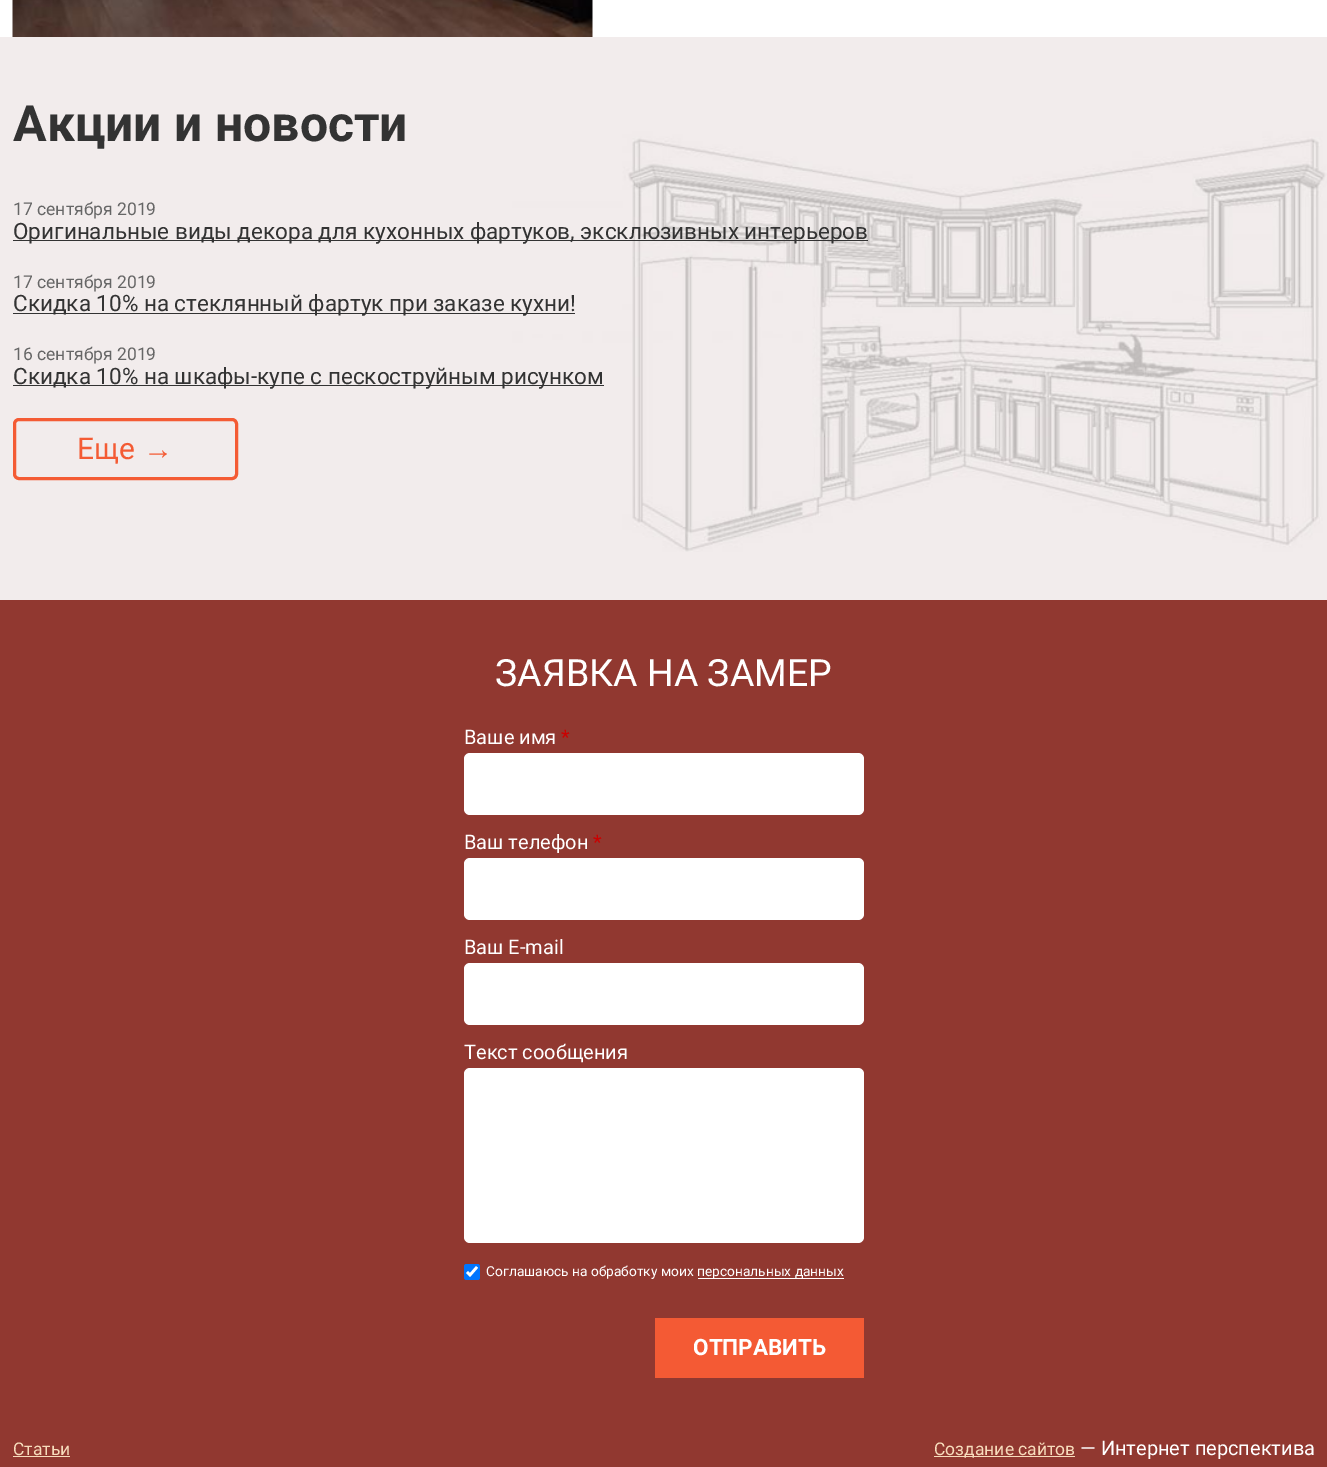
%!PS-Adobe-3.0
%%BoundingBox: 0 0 1327 1467
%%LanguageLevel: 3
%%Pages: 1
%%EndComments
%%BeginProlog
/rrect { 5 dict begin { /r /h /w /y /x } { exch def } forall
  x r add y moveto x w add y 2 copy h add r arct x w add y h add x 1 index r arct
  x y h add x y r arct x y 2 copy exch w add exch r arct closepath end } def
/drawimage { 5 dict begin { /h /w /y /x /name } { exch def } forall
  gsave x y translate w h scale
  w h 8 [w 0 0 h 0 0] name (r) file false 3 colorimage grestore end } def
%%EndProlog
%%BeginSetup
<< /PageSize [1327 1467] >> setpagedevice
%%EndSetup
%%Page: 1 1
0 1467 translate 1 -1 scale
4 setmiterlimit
1 setgray
0 0 1327 1467 rectfill
(images/1.raw) 12 0 581 37 drawimage
0.949 0.925 0.925 setrgbcolor
0 552 1327 48 rectfill
(images/2.raw) 0 37 1327 515 drawimage
0.2 setgray
13 240 855 1 rectfill
13 313 562 1 rectfill
13 385 591 1 rectfill
0.957 0.357 0.204 setrgbcolor
3 setlinewidth
14.5 419.5 222 59 4.5 rrect stroke
0.569 0.22 0.188 setrgbcolor
0 600 1327 867 rectfill
1 setgray
464 753 400 62 6 rrect fill
464 858 400 62 6 rrect fill
464 963 400 62 6 rrect fill
464 1068 400 175 6 rrect fill
0 0.459 1 setrgbcolor
464 1264 16 16 2.5 rrect fill
1 setgray
2.6 setlinewidth
newpath 467 1272 moveto 470 1275 lineto 477 1267 lineto stroke
698 1278 146 1 rectfill
0.957 0.353 0.204 setrgbcolor
655 1318 209 60 rectfill
0.969 0.863 0.737 setrgbcolor
13 1456 57 1 rectfill
934 1456 141 1 rectfill
/Roboto-Bold [50 0 0 -50 0 0] selectfont
0.2 setgray
13 141 moveto (Акции и новости) show
/Roboto-Regular [17.5 0 0 -17.5 0 0] selectfont
0.4 setgray
13 215 moveto (17 сентября 2019) show
/Roboto-Regular [22.5 0 0 -22.5 0 0] selectfont
0.2 setgray
13 239 moveto (Оригинальные виды декора для кухонных фартуков, эксклюзивных интерьеров) show
/Roboto-Regular [17.5 0 0 -17.5 0 0] selectfont
0.4 setgray
13 288 moveto (17 сентября 2019) show
/Roboto-Regular [22.5 0 0 -22.5 0 0] selectfont
0.2 setgray
13 311 moveto (Скидка 10% на стеклянный фартук при заказе кухни!) show
/Roboto-Regular [17.5 0 0 -17.5 0 0] selectfont
0.4 setgray
13 360 moveto (16 сентября 2019) show
/Roboto-Regular [22.5 0 0 -22.5 0 0] selectfont
0.2 setgray
13 384 moveto (Скидка 10% на шкафы-купе с пескоструйным рисунком) show
/Roboto-Regular [30 0 0 -30 0 0] selectfont
0.957 0.357 0.204 setrgbcolor
77 459 moveto (Еще) show
/LiberationSerif-Regular [30 0 0 -30 0 0] selectfont
143 459 moveto (→) show
/Roboto-Regular [37.5 0 0 -37.5 0 0] selectfont
1 setgray
495 686 moveto (ЗАЯВКА НА ЗАМЕР) show
/Roboto-Regular [20 0 0 -20 0 0] selectfont
464 744 moveto (Ваше имя) show
0.8 0 0 setrgbcolor
561 744 moveto (*) show
1 setgray
464 849 moveto (Ваш телефон) show
0.8 0 0 setrgbcolor
593 849 moveto (*) show
1 setgray
464 954 moveto (Ваш E-mail) show
464 1059 moveto (Текст сообщения) show
/Roboto-Regular [13.75 0 0 -13.75 0 0] selectfont
486 1276 moveto (Соглашаюсь на обработку моих) show
697 1276 moveto (персональных данных) show
/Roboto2-Bold [22.5 0 0 -22.5 0 0] selectfont
693 1355 moveto (ОТПРАВИТЬ) show
/Roboto-Regular [17.5 0 0 -17.5 0 0] selectfont
0.969 0.863 0.737 setrgbcolor
13 1455 moveto (Статьи) show
934 1455 moveto (Создание сайтов) show
/Roboto-Regular [20 0 0 -20 0 0] selectfont
1 setgray
1080 1455 moveto (— Интернет перспектива) show
showpage
%%EOF
